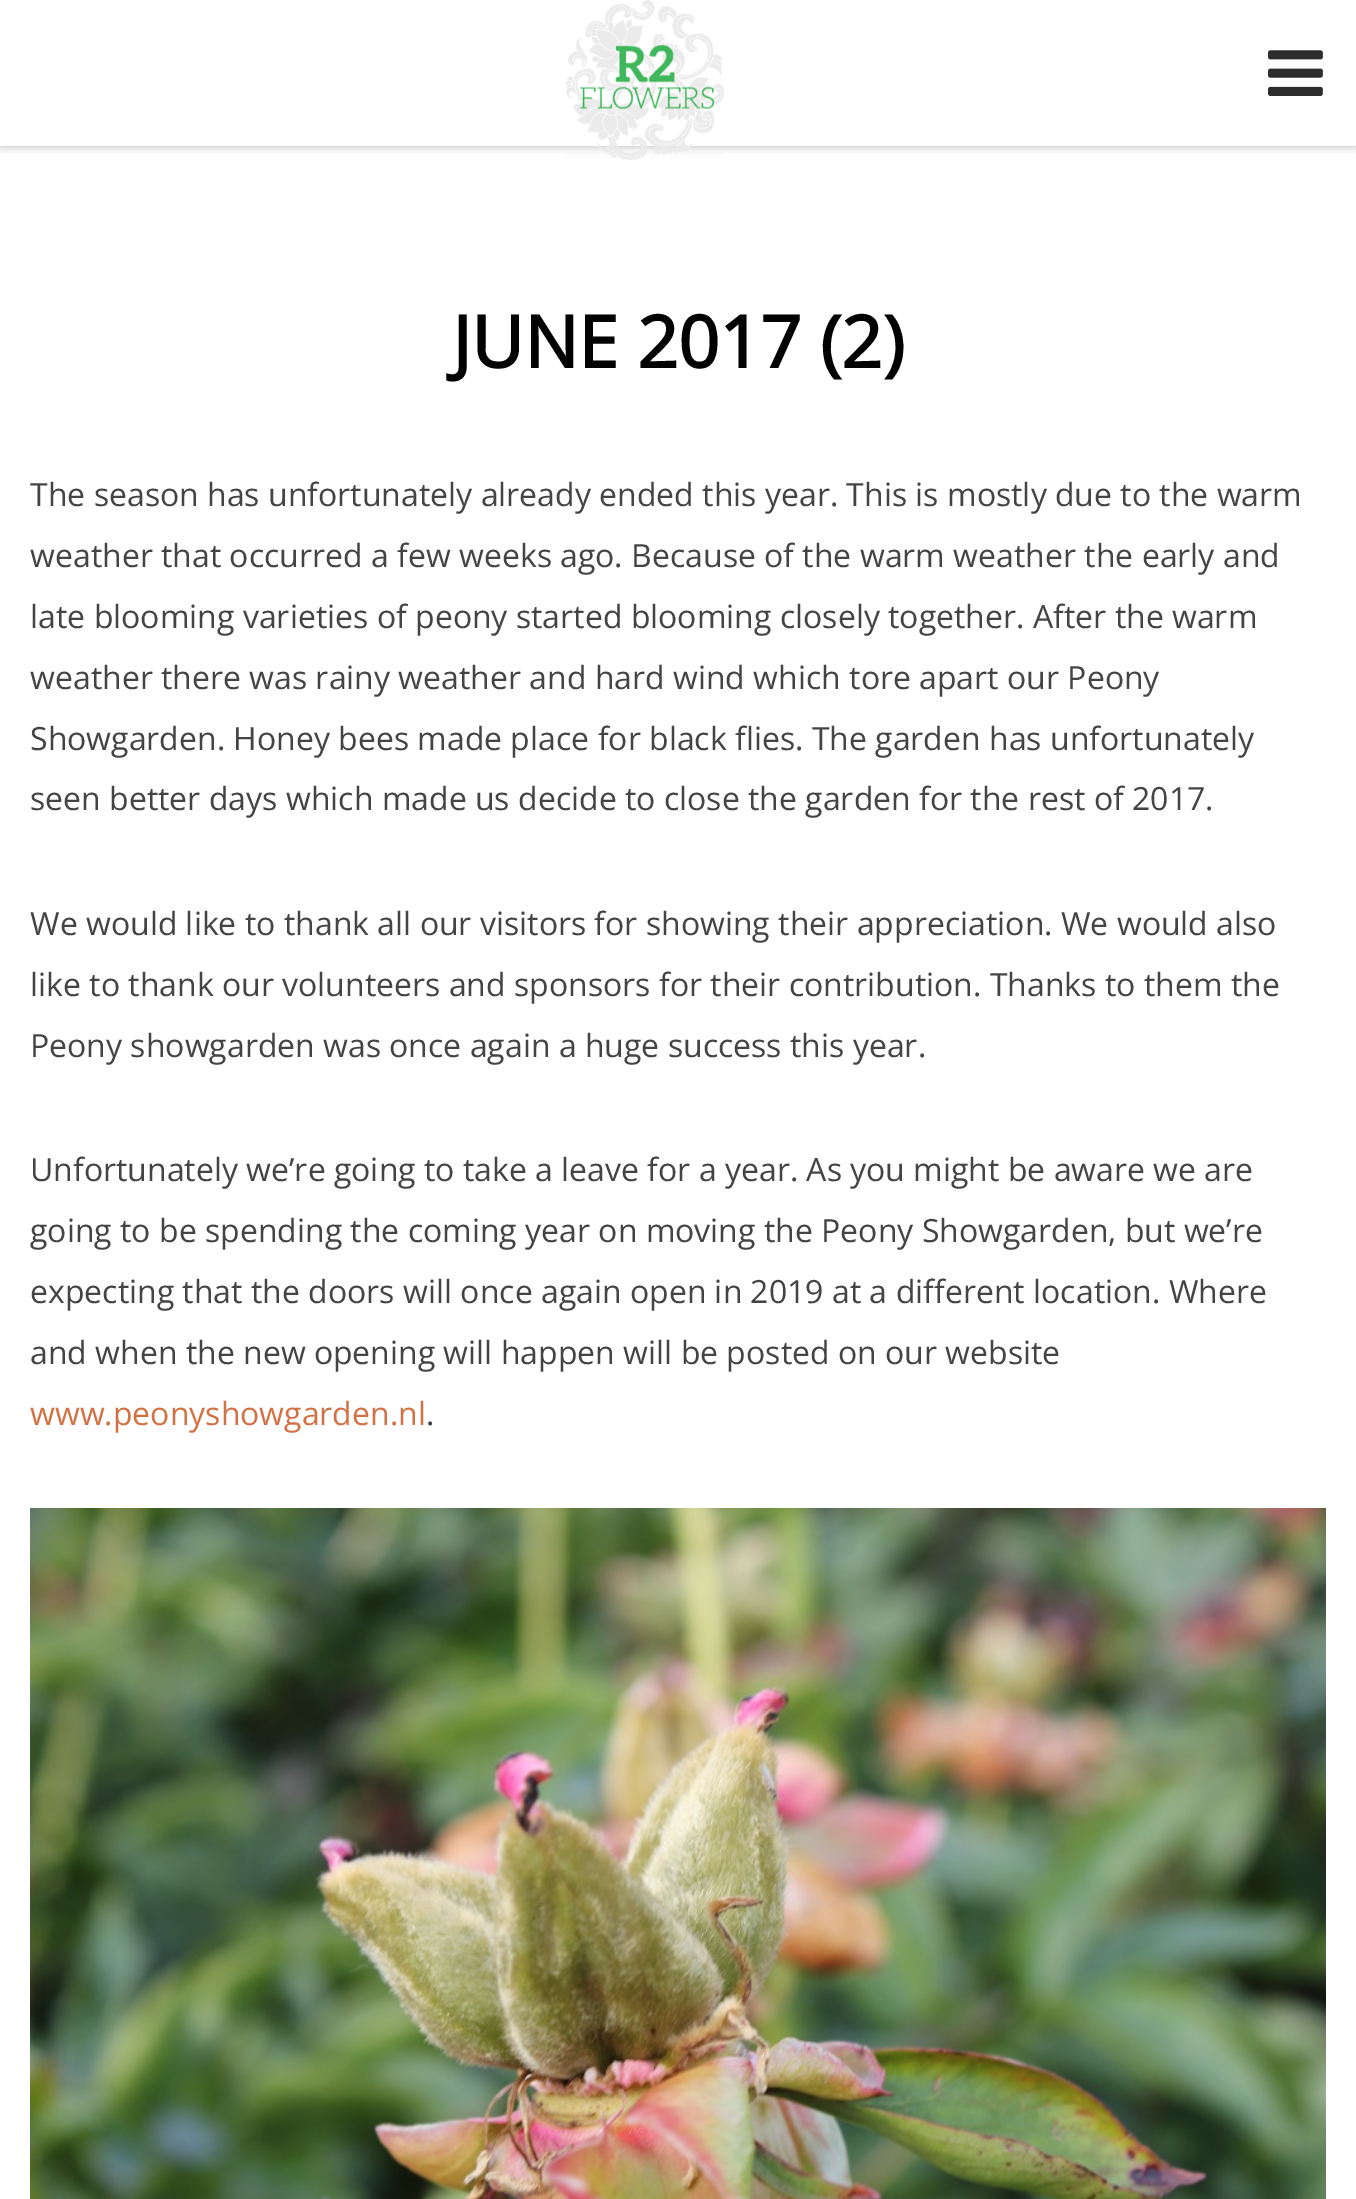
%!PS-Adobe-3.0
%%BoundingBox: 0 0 1356 2199
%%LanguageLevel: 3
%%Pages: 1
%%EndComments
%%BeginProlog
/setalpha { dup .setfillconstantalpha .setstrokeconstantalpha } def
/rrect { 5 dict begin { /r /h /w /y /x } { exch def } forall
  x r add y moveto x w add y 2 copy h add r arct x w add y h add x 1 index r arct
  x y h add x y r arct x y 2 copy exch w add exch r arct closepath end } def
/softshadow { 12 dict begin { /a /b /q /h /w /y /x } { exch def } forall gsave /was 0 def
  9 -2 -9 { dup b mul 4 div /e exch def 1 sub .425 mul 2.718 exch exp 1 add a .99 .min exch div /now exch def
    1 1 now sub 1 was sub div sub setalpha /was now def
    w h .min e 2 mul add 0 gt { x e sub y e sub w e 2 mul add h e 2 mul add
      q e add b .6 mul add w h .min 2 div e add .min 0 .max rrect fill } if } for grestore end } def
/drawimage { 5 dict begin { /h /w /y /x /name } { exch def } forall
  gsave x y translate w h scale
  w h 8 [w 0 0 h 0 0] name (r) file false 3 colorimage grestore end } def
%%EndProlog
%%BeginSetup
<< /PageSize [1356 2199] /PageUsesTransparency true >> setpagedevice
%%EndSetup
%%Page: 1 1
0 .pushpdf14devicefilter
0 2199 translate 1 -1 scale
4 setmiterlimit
1 setgray
0 0 1356 2199 rectfill
gsave
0 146 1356 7 rectclip
0 setgray
0 0 1356 146 0 5 0.3 softshadow
grestore
(images/1.raw) 566 0 158 160 drawimage
(images/2.raw) 1268 50 55 46 drawimage
(images/3.raw) 30 1508 1296 691 drawimage
/OpenSans-Bold [72 0 0 -72 0 0] selectfont
0.004 setgray
452 368 moveto (JUNE 2017 \(2\)) show
/OpenSans-Regular [32 0 0 -32 0 0] selectfont
0.267 setgray
30 506 moveto (The season has unfortunately already ended this year. This is mostly due to the warm) show
30 567 moveto (weather that occurred a few weeks ago. Because of the warm weather the early and) show
30 628 moveto (late blooming varieties of peony started blooming closely together. After the warm) show
30 689 moveto (weather there was rainy weather and hard wind which tore apart our Peony) show
30 750 moveto (Showgarden. Honey bees made place for black flies. The garden has unfortunately) show
30 810 moveto (seen better days which made us decide to close the garden for the rest of 2017.) show
30 935 moveto (We would like to thank all our visitors for showing their appreciation. We would also) show
30 996 moveto (like to thank our volunteers and sponsors for their contribution. Thanks to them the) show
30 1057 moveto (Peony showgarden was once again a huge success this year.) show
30 1181 moveto (Unfortunately we’re going to take a leave for a year. As you might be aware we are) show
30 1242 moveto (going to be spending the coming year on moving the Peony Showgarden, but we’re) show
30 1303 moveto (expecting that the doors will once again open in 2019 at a different location. Where) show
30 1364 moveto (and when the new opening will happen will be posted on our website) show
0.824 0.447 0.267 setrgbcolor
30 1425 moveto (www.peonyshowgarden.nl) show
0.267 setgray
426 1425 moveto (.) show
.poppdf14devicefilter showpage
%%EOF
